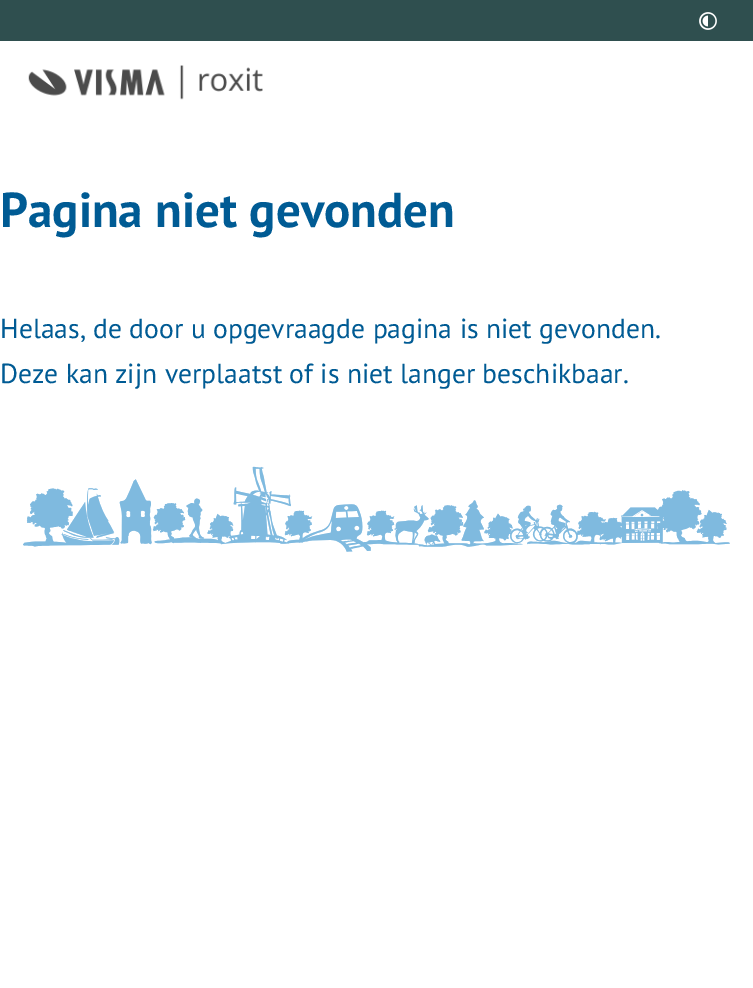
%!PS-Adobe-3.0
%%BoundingBox: 0 0 753 988
%%LanguageLevel: 3
%%Pages: 1
%%EndComments
%%BeginProlog
/drawimage { 5 dict begin { /h /w /y /x /name } { exch def } forall
  gsave x y translate w h scale
  w h 8 [w 0 0 h 0 0] name (r) file false 3 colorimage grestore end } def
%%EndProlog
%%BeginSetup
<< /PageSize [753 988] >> setpagedevice
%%EndSetup
%%Page: 1 1
0 988 translate 1 -1 scale
4 setmiterlimit
1 setgray
0 0 753 988 rectfill
0.184 0.31 0.31 setrgbcolor
0 0 753 41 rectfill
(images/1.raw) 699 12 18 18 drawimage
(images/2.raw) 28 65 235 35 drawimage
(images/3.raw) 23 466 707 86 drawimage
/PTSans-Bold [49 0 0 -49 0 0] selectfont
0 0.357 0.58 setrgbcolor
0 227 moveto (Pagina niet gevonden) show
/PTSans-Regular [27.6 0 0 -27.6 0 0] selectfont
0 338 moveto (Helaas, de door u opgevraagde pagina is niet gevonden.) show
0 383 moveto (Deze kan zijn verplaatst of is niet langer beschikbaar.) show
showpage
%%EOF
